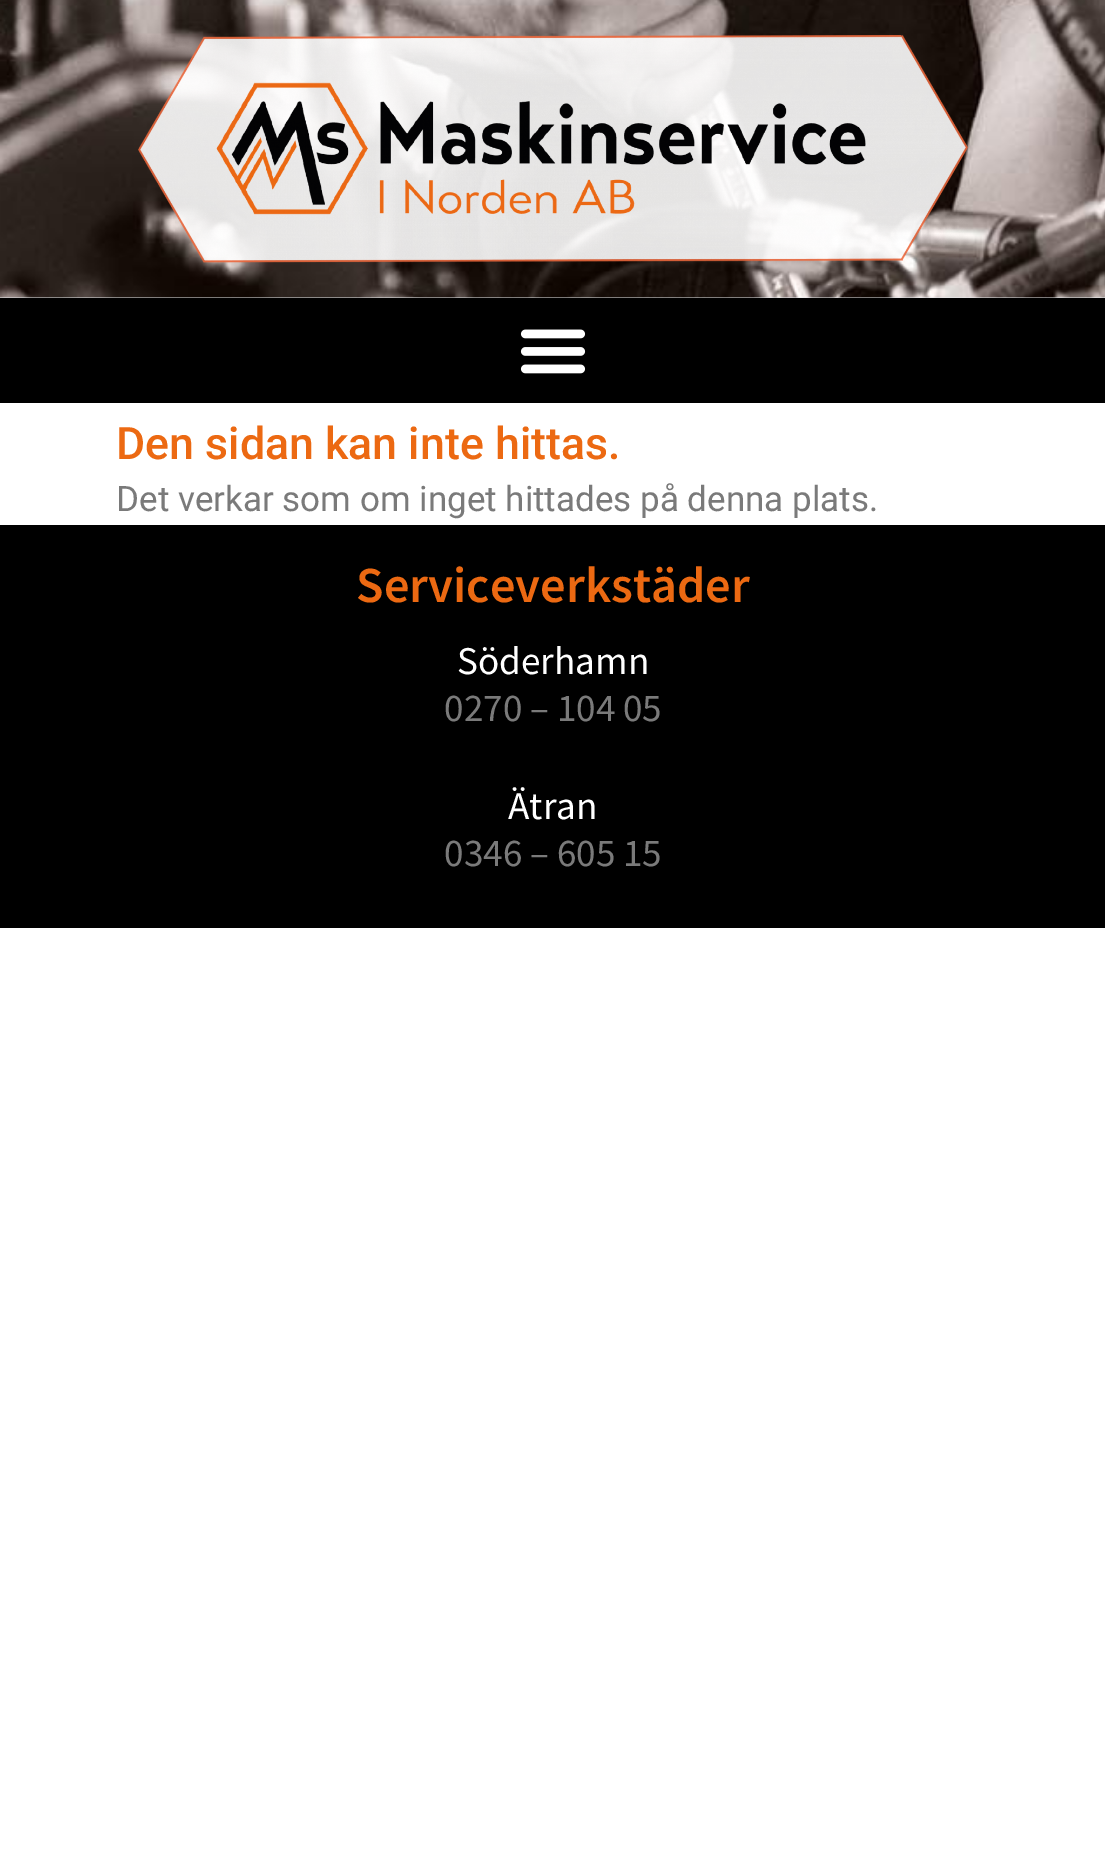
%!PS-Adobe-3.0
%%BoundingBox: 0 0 1105 1851
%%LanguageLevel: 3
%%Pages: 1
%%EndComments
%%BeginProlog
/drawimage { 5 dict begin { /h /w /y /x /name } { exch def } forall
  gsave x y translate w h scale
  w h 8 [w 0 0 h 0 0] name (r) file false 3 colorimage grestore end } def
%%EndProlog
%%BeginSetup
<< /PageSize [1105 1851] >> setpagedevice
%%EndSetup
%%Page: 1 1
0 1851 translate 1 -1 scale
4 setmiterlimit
1 setgray
0 0 1105 1851 rectfill
0.922 0.933 0.945 setrgbcolor
0 297 1105 1 rectfill
(images/1.raw) 0 0 1105 298 drawimage
(images/2.raw) 138 35 830 228 drawimage
0 setgray
0 298 1105 105 rectfill
(images/3.raw) 520 329 66 45 drawimage
0 525 1105 403 rectfill
/Roboto-Medium [44.75 0 0 -44.75 0 0] selectfont
0.925 0.412 0.071 setrgbcolor
116 459 moveto (Den sidan kan inte hittas.) show
/Roboto-Regular [35 0 0 -35 0 0] selectfont
0.478 setgray
116 511 moveto (Det verkar som om inget hittades på denna plats.) show
/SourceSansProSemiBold-SemiBold [50.5 0 0 -50.5 0 0] selectfont
0.925 0.412 0.071 setrgbcolor
356 602 moveto (Serviceverkstäder) show
/SourceSansPro-Regular [39.25 0 0 -39.25 0 0] selectfont
1 setgray
457 674 moveto (Söderhamn) show
0.478 setgray
444 721 moveto (0270 – 104 05) show
1 setgray
508 819 moveto (Ätran) show
0.478 setgray
444 866 moveto (0346 – 605 15) show
showpage
%%EOF
